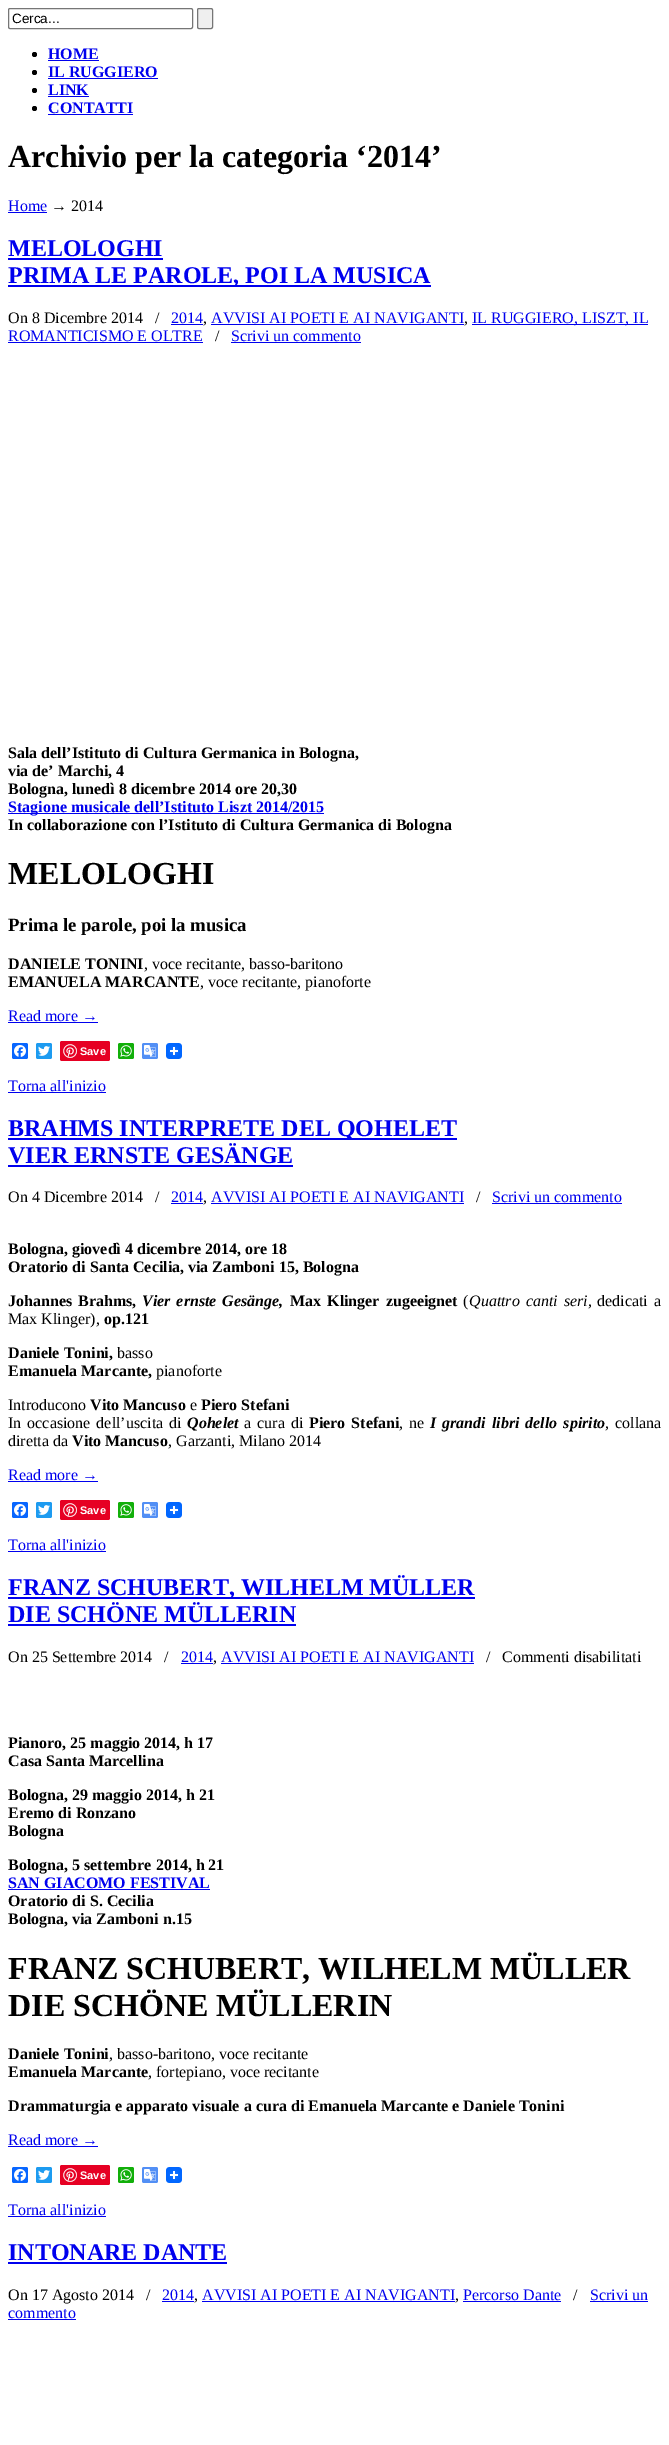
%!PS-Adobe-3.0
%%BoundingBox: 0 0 669 2445
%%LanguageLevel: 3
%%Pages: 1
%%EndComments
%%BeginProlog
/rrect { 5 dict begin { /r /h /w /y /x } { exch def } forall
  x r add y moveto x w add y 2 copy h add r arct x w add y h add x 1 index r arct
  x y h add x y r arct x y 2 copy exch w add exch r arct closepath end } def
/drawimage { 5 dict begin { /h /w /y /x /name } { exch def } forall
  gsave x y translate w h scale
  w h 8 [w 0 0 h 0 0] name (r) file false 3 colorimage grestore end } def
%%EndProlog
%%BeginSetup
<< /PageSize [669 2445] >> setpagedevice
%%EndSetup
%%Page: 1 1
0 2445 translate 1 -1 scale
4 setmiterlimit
1 setgray
0 0 669 2445 rectfill
0.463 setgray
8.5 8.5 184 20 1.5 rrect stroke
0.937 setgray
197.5 8.5 15 20 1.5 rrect gsave fill grestore
0.463 setgray
stroke
0 setgray
newpath 34.5 54.5 2.5 0 360 arc closepath fill
0 0 0.933 setrgbcolor
48 60 51 1 rectfill
0 setgray
newpath 34.5 72.5 2.5 0 360 arc closepath fill
0 0 0.933 setrgbcolor
48 78 110 1 rectfill
0 setgray
newpath 34.5 90.5 2.5 0 360 arc closepath fill
0 0 0.933 setrgbcolor
48 96 41 1 rectfill
0 setgray
newpath 34.5 108.5 2.5 0 360 arc closepath fill
0 0 0.933 setrgbcolor
48 114 85 1 rectfill
8 212 39 1 rectfill
8 258 155 2 rectfill
8 285 423 2 rectfill
171 324 32 1 rectfill
211 324 253 1 rectfill
472 324 176 1 rectfill
8 342 195 1 rectfill
231 342 130 1 rectfill
8 813 316 1 rectfill
8 1022 90 1 rectfill
0.031 0.4 1 setrgbcolor
12 1043 16 16 2 rrect fill
(images/1.raw) 14 1045 12 12 drawimage
0.114 0.608 0.941 setrgbcolor
36 1043 16 16 2 rrect fill
(images/2.raw) 38 1046 12 10 drawimage
0.902 0 0.137 setrgbcolor
60 1041 50 20 2 rrect fill
(images/3.raw) 63 1044 14 14 drawimage
0.071 0.686 0.039 setrgbcolor
118 1043 16 16 2 rrect fill
(images/4.raw) 120 1045 12 12 drawimage
0.322 0.561 0.961 setrgbcolor
142 1043 16 16 2 rrect fill
(images/5.raw) 144 1045 12 12 drawimage
(images/6.raw) 166 1043 16 16 drawimage
0 0 0.933 setrgbcolor
8 1092 98 1 rectfill
8 1138 449 2 rectfill
8 1165 285 2 rectfill
171 1203 32 1 rectfill
211 1203 253 1 rectfill
492 1203 130 1 rectfill
8 1481 90 1 rectfill
0.031 0.4 1 setrgbcolor
12 1502 16 16 2 rrect fill
(images/1.raw) 14 1504 12 12 drawimage
0.114 0.608 0.941 setrgbcolor
36 1502 16 16 2 rrect fill
(images/2.raw) 38 1505 12 10 drawimage
0.902 0 0.137 setrgbcolor
60 1500 50 20 2 rrect fill
(images/3.raw) 63 1503 14 14 drawimage
0.071 0.686 0.039 setrgbcolor
118 1502 16 16 2 rrect fill
(images/4.raw) 120 1504 12 12 drawimage
0.322 0.561 0.961 setrgbcolor
142 1502 16 16 2 rrect fill
(images/5.raw) 144 1504 12 12 drawimage
(images/6.raw) 166 1502 16 16 drawimage
0 0 0.933 setrgbcolor
8 1551 98 1 rectfill
8 1597 467 2 rectfill
8 1624 288 2 rectfill
181 1663 32 1 rectfill
221 1663 253 1 rectfill
8 1889 202 1 rectfill
8 2146 90 1 rectfill
0.031 0.4 1 setrgbcolor
12 2167 16 16 2 rrect fill
(images/1.raw) 14 2169 12 12 drawimage
0.114 0.608 0.941 setrgbcolor
36 2167 16 16 2 rrect fill
(images/2.raw) 38 2170 12 10 drawimage
0.902 0 0.137 setrgbcolor
60 2165 50 20 2 rrect fill
(images/3.raw) 63 2168 14 14 drawimage
0.071 0.686 0.039 setrgbcolor
118 2167 16 16 2 rrect fill
(images/4.raw) 120 2169 12 12 drawimage
0.322 0.561 0.961 setrgbcolor
142 2167 16 16 2 rrect fill
(images/5.raw) 144 2169 12 12 drawimage
(images/6.raw) 166 2167 16 16 drawimage
0 0 0.933 setrgbcolor
8 2216 98 1 rectfill
8 2262 219 2 rectfill
162 2301 32 1 rectfill
202 2301 253 1 rectfill
463 2301 98 1 rectfill
590 2301 58 1 rectfill
8 2319 68 1 rectfill
/LiberationSans-Regular [13.5 0 0 -13.5 0 0] selectfont
0 setgray
12 23 moveto (Cerca...) show
/LiberationSerif-Bold [16 0 0 -16 0 0] selectfont
0 0 0.933 setrgbcolor
48 59 moveto (HOME) show
48 77 moveto (IL RUGGIERO) show
48 95 moveto (LINK) show
48 113 moveto (CONTATTI) show
/LiberationSerif-Bold [32 0 0 -32 0 0] selectfont
0 setgray
8 167 moveto (Archivio per la categoria ‘2014’) show
/LiberationSerif-Regular [16 0 0 -16 0 0] selectfont
0 0 0.933 setrgbcolor
8 211 moveto (Home) show
0 setgray
51 211 moveto (→ 2014) show
/LiberationSerif-Bold [24 0 0 -24 0 0] selectfont
0 0 0.933 setrgbcolor
8 256 moveto (MELOLOGHI) show
8 283 moveto (PRIMA LE PAROLE, POI LA MUSICA) show
/LiberationSerif-Regular [16 0 0 -16 0 0] selectfont
0 setgray
8 323 moveto (On 8 Dicembre 2014) show
155 323 moveto (/) show
0 0 0.933 setrgbcolor
171 323 moveto (2014) show
0 setgray
203 323 moveto (,) show
0 0 0.933 setrgbcolor
211 323 moveto (AVVISI AI POETI E AI NAVIGANTI) show
0 setgray
464 323 moveto (,) show
0 0 0.933 setrgbcolor
472 323 moveto (IL RUGGIERO, LISZT, IL) show
8 341 moveto (ROMANTICISMO E OLTRE) show
0 setgray
215 341 moveto (/) show
0 0 0.933 setrgbcolor
231 341 moveto (Scrivi un commento) show
/LiberationSerif-Bold [16 0 0 -16 0 0] selectfont
0 setgray
8 758 moveto (Sala dell’Istituto di Cultura Germanica in Bologna,) show
8 776 moveto (via de’ Marchi, 4) show
8 794 moveto (Bologna, lunedì 8 dicembre 2014 ore 20,30) show
0 0 0.933 setrgbcolor
8 812 moveto (Stagione musicale dell’Istituto Liszt 2014/2015) show
0 setgray
8 830 moveto (In collaborazione con l’Istituto di Cultura Germanica di Bologna) show
/LiberationSerif-Bold [32 0 0 -32 0 0] selectfont
8 884 moveto (MELOLOGHI) show
/LiberationSerif-Bold [18.75 0 0 -18.75 0 0] selectfont
8 931 moveto (Prima le parole, poi la musica) show
/LiberationSerif-Bold [16 0 0 -16 0 0] selectfont
8 969 moveto (DANIELE TONINI) show
/LiberationSerif-Regular [16 0 0 -16 0 0] selectfont
144 969 moveto (, voce recitante, basso-baritono) show
/LiberationSerif-Bold [16 0 0 -16 0 0] selectfont
8 987 moveto (EMANUELA MARCANTE) show
/LiberationSerif-Regular [16 0 0 -16 0 0] selectfont
200 987 moveto (, voce recitante, pianoforte) show
0 0 0.933 setrgbcolor
8 1021 moveto (Read more →) show
/LiberationSans-Bold [11 0 0 -11 0 0] selectfont
1 setgray
80 1055 moveto (Save) show
/LiberationSerif-Regular [16 0 0 -16 0 0] selectfont
0 0 0.933 setrgbcolor
8 1091 moveto (Torna all'inizio) show
/LiberationSerif-Bold [24 0 0 -24 0 0] selectfont
8 1136 moveto (BRAHMS INTERPRETE DEL QOHELET) show
8 1163 moveto (VIER ERNSTE GESÄNGE) show
/LiberationSerif-Regular [16 0 0 -16 0 0] selectfont
0 setgray
8 1202 moveto (On 4 Dicembre 2014) show
155 1202 moveto (/) show
0 0 0.933 setrgbcolor
171 1202 moveto (2014) show
0 setgray
203 1202 moveto (,) show
0 0 0.933 setrgbcolor
211 1202 moveto (AVVISI AI POETI E AI NAVIGANTI) show
0 setgray
476 1202 moveto (/) show
0 0 0.933 setrgbcolor
492 1202 moveto (Scrivi un commento) show
/LiberationSerif-Bold [16 0 0 -16 0 0] selectfont
0 setgray
8 1254 moveto (Bologna, giovedì 4 dicembre 2014, ore 18) show
8 1272 moveto (Oratorio di Santa Cecilia, via Zamboni 15, Bologna) show
8 1306 moveto 2 0 32 (Johannes Brahms,) widthshow
/LiberationSerif-BoldItalic [16 0 0 -16 0 0] selectfont
142 1306 moveto 2 0 32 (Vier ernste Gesänge,) widthshow
/LiberationSerif-Bold [16 0 0 -16 0 0] selectfont
290 1306 moveto 2 0 32 (Max Klinger zugeeignet) widthshow
/LiberationSerif-Regular [16 0 0 -16 0 0] selectfont
463 1306 moveto (\() show
/LiberationSerif-Italic [16 0 0 -16 0 0] selectfont
469 1306 moveto 2 0 32 (Quattro canti seri,) widthshow
/LiberationSerif-Regular [16 0 0 -16 0 0] selectfont
597 1306 moveto 2 0 32 (dedicati a) widthshow
8 1324 moveto (Max Klinger\),) show
/LiberationSerif-Bold [16 0 0 -16 0 0] selectfont
104 1324 moveto (op.121) show
8 1358 moveto (Daniele Tonini,) show
/LiberationSerif-Regular [16 0 0 -16 0 0] selectfont
117 1358 moveto (basso) show
/LiberationSerif-Bold [16 0 0 -16 0 0] selectfont
8 1376 moveto (Emanuela Marcante,) show
/LiberationSerif-Regular [16 0 0 -16 0 0] selectfont
156 1376 moveto (pianoforte) show
8 1410 moveto (Introducono) show
/LiberationSerif-Bold [16 0 0 -16 0 0] selectfont
90 1410 moveto (Vito Mancuso) show
/LiberationSerif-Regular [16 0 0 -16 0 0] selectfont
190 1410 moveto (e) show
/LiberationSerif-Bold [16 0 0 -16 0 0] selectfont
201 1410 moveto (Piero Stefani) show
/LiberationSerif-Regular [16 0 0 -16 0 0] selectfont
8 1428 moveto 2 0 32 (In occasione dell’uscita di) widthshow
/LiberationSerif-BoldItalic [16 0 0 -16 0 0] selectfont
187 1428 moveto (Qohelet) show
/LiberationSerif-Regular [16 0 0 -16 0 0] selectfont
244 1428 moveto 2 0 32 (a cura di) widthshow
/LiberationSerif-Bold [16 0 0 -16 0 0] selectfont
309 1428 moveto 2 0 32 (Piero Stefani) widthshow
/LiberationSerif-Regular [16 0 0 -16 0 0] selectfont
399 1428 moveto 2 0 32 (, ne) widthshow
/LiberationSerif-BoldItalic [16 0 0 -16 0 0] selectfont
430 1428 moveto 2 0 32 (I grandi libri dello spirito) widthshow
/LiberationSerif-Italic [16 0 0 -16 0 0] selectfont
605 1428 moveto (,) show
/LiberationSerif-Regular [16 0 0 -16 0 0] selectfont
615 1428 moveto (collana) show
8 1446 moveto (diretta da) show
/LiberationSerif-Bold [16 0 0 -16 0 0] selectfont
72 1446 moveto (Vito Mancuso) show
/LiberationSerif-Regular [16 0 0 -16 0 0] selectfont
168 1446 moveto (, Garzanti, Milano 2014) show
0 0 0.933 setrgbcolor
8 1480 moveto (Read more →) show
/LiberationSans-Bold [11 0 0 -11 0 0] selectfont
1 setgray
80 1514 moveto (Save) show
/LiberationSerif-Regular [16 0 0 -16 0 0] selectfont
0 0 0.933 setrgbcolor
8 1550 moveto (Torna all'inizio) show
/LiberationSerif-Bold [24 0 0 -24 0 0] selectfont
8 1595 moveto (FRANZ SCHUBERT, WILHELM MÜLLER) show
8 1622 moveto (DIE SCHÖNE MÜLLERIN) show
/LiberationSerif-Regular [16 0 0 -16 0 0] selectfont
0 setgray
8 1662 moveto (On 25 Settembre 2014) show
164 1662 moveto (/) show
0 0 0.933 setrgbcolor
181 1662 moveto (2014) show
0 setgray
213 1662 moveto (,) show
0 0 0.933 setrgbcolor
221 1662 moveto (AVVISI AI POETI E AI NAVIGANTI) show
0 setgray
486 1662 moveto (/) show
502 1662 moveto (Commenti disabilitati) show
/LiberationSerif-Bold [16 0 0 -16 0 0] selectfont
8 1748 moveto (Pianoro, 25 maggio 2014, h 17) show
8 1766 moveto (Casa Santa Marcellina) show
8 1800 moveto (Bologna, 29 maggio 2014, h 21) show
8 1818 moveto (Eremo di Ronzano) show
8 1836 moveto (Bologna) show
8 1870 moveto (Bologna, 5 settembre 2014, h 21) show
0 0 0.933 setrgbcolor
8 1888 moveto (SAN GIACOMO FESTIVAL) show
0 setgray
8 1906 moveto (Oratorio di S. Cecilia) show
8 1924 moveto (Bologna, via Zamboni n.15) show
/LiberationSerif-Bold [32 0 0 -32 0 0] selectfont
8 1979 moveto (FRANZ SCHUBERT, WILHELM MÜLLER) show
8 2016 moveto (DIE SCHÖNE MÜLLERIN) show
/LiberationSerif-Bold [16 0 0 -16 0 0] selectfont
8 2059 moveto (Daniele Tonini) show
/LiberationSerif-Regular [16 0 0 -16 0 0] selectfont
109 2059 moveto (, basso-baritono, voce recitante) show
/LiberationSerif-Bold [16 0 0 -16 0 0] selectfont
8 2077 moveto (Emanuela Marcante) show
/LiberationSerif-Regular [16 0 0 -16 0 0] selectfont
148 2077 moveto (, fortepiano, voce recitante) show
/LiberationSerif-Bold [16 0 0 -16 0 0] selectfont
8 2111 moveto (Drammaturgia e apparato visuale a cura di Emanuela Marcante e Daniele Tonini) show
/LiberationSerif-Regular [16 0 0 -16 0 0] selectfont
0 0 0.933 setrgbcolor
8 2145 moveto (Read more →) show
/LiberationSans-Bold [11 0 0 -11 0 0] selectfont
1 setgray
80 2179 moveto (Save) show
/LiberationSerif-Regular [16 0 0 -16 0 0] selectfont
0 0 0.933 setrgbcolor
8 2215 moveto (Torna all'inizio) show
/LiberationSerif-Bold [24 0 0 -24 0 0] selectfont
8 2260 moveto (INTONARE DANTE) show
/LiberationSerif-Regular [16 0 0 -16 0 0] selectfont
0 setgray
8 2300 moveto (On 17 Agosto 2014) show
146 2300 moveto (/) show
0 0 0.933 setrgbcolor
162 2300 moveto (2014) show
0 setgray
194 2300 moveto (,) show
0 0 0.933 setrgbcolor
202 2300 moveto (AVVISI AI POETI E AI NAVIGANTI) show
0 setgray
455 2300 moveto (,) show
0 0 0.933 setrgbcolor
463 2300 moveto (Percorso Dante) show
0 setgray
573 2300 moveto (/) show
0 0 0.933 setrgbcolor
590 2300 moveto (Scrivi un) show
8 2318 moveto (commento) show
showpage
%%EOF
